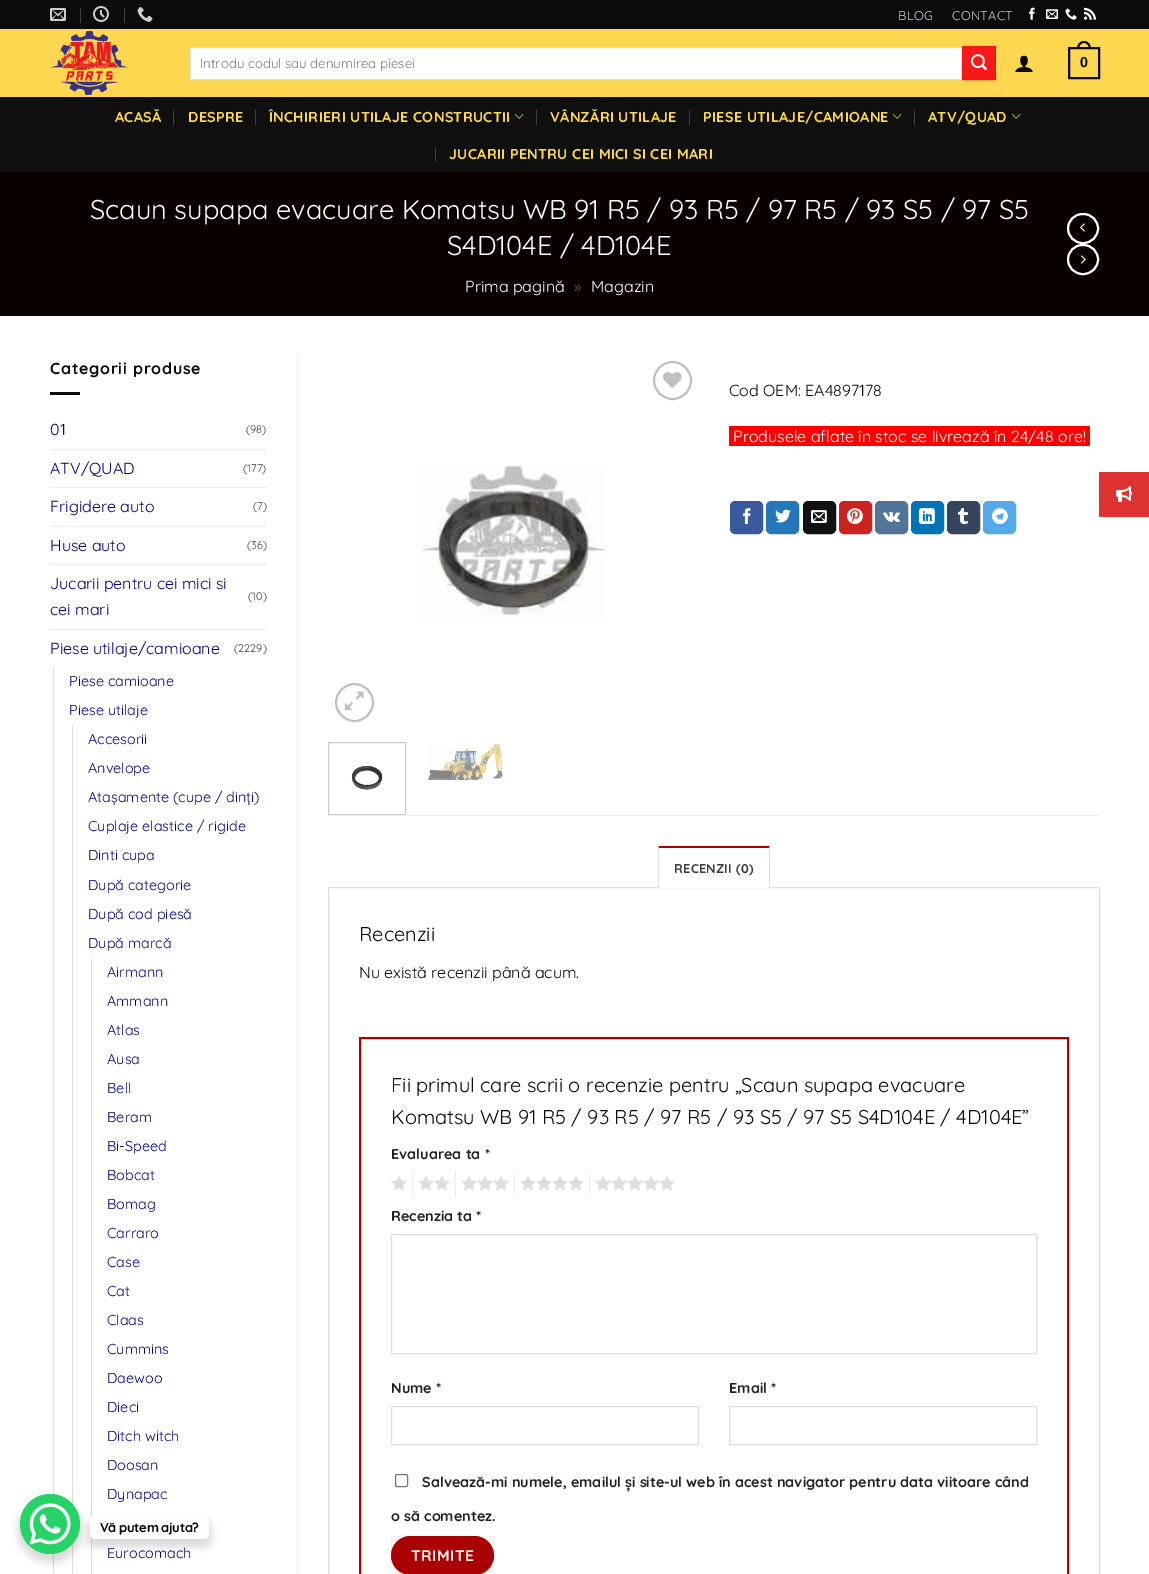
%!PS-Adobe-3.0
%%BoundingBox: 0 0 1149 1574
%%LanguageLevel: 3
%%Pages: 1
%%EndComments
%%BeginProlog
/setalpha { dup .setfillconstantalpha .setstrokeconstantalpha } def
/rrect { 5 dict begin { /r /h /w /y /x } { exch def } forall
  x r add y moveto x w add y 2 copy h add r arct x w add y h add x 1 index r arct
  x y h add x y r arct x y 2 copy exch w add exch r arct closepath end } def
/softshadow { 12 dict begin { /a /b /q /h /w /y /x } { exch def } forall gsave /was 0 def
  9 -2 -9 { dup b mul 4 div /e exch def 1 sub .425 mul 2.718 exch exp 1 add a .99 .min exch div /now exch def
    1 1 now sub 1 was sub div sub setalpha /was now def
    w h .min e 2 mul add 0 gt { x e sub y e sub w e 2 mul add h e 2 mul add
      q e add b .6 mul add w h .min 2 div e add .min 0 .max rrect fill } if } for grestore end } def
/drawimage { 5 dict begin { /h /w /y /x /name } { exch def } forall
  gsave x y translate w h scale
  w h 8 [w 0 0 h 0 0] name (r) file false 3 colorimage grestore end } def
%%EndProlog
%%BeginSetup
<< /PageSize [1149 1574] /PageUsesTransparency true >> setpagedevice
%%EndSetup
%%Page: 1 1
0 .pushpdf14devicefilter
0 1574 translate 1 -1 scale
4 setmiterlimit
1 setgray
0 0 1149 1574 rectfill
0.047 setgray
0 0 1149 29 rectfill
(images/1.raw) 50 8 16 13 drawimage
0.239 setgray
80 8 1 15 rectfill
(images/2.raw) 93 6 16 16 drawimage
124 8 1 15 rectfill
(images/3.raw) 137 7 16 15 drawimage
(images/4.raw) 1029 7 6 13 drawimage
(images/5.raw) 1046 9 12 10 drawimage
(images/6.raw) 1065 8 12 12 drawimage
(images/7.raw) 1084 7 12 13 drawimage
0.996 0.843 0.314 setrgbcolor
0 29 1149 68 rectfill
(images/8.raw) 50 31 79 64 drawimage
1 setgray
newpath 190.5 47.5 moveto 961.5 47.5 lineto 961.5 79.5 lineto 190.5 79.5 lineto closepath gsave fill grestore
0.867 setgray
stroke
0.98 0.098 0.098 setrgbcolor
newpath 962.5 46.5 moveto 995.5 46.5 lineto 995.5 79.5 lineto 962.5 79.5 lineto closepath gsave fill grestore
0.933 0.094 0.094 setrgbcolor
stroke
(images/9.raw) 971 54 16 16 drawimage
0.996 0.859 0.384 setrgbcolor
996 48 1 30 rectfill
(images/10.raw) 1015 55 18 17 drawimage
1050 48 1 30 rectfill
0.039 setgray
2 setlinewidth
1069 48 30 30 rectstroke
newpath 1084 41 moveto 1088.5 41 1091 45 1091 49 curveto 1077 49 lineto 1077 45 1079.5 41 1084 41 curveto closepath 1084 43 moveto 1087.5 43 1089 46 1089 49 curveto 1079 49 lineto 1079 46 1080.5 43 1084 43 curveto closepath eofill
0.059 setgray
0 97 1149 75 rectfill
0.247 setgray
173 110 1 15 rectfill
255 110 1 15 rectfill
(images/11.raw) 514 113 10 6 drawimage
536 110 1 15 rectfill
689 110 1 15 rectfill
(images/11.raw) 892 113 10 6 drawimage
914 110 1 15 rectfill
(images/11.raw) 1011 113 10 6 drawimage
435 147 1 15 rectfill
0.039 0 0 setrgbcolor
0 172 1149 144 rectfill
1 setgray
1068 214 30 29 14.5 rrect stroke
(images/12.raw) 1080 223 5 9 drawimage
1068 245 30 29 14.5 rrect stroke
(images/13.raw) 1081 255 5 9 drawimage
0.039 setgray
50 392 30 3 rectfill
0.925 setgray
50 449 217 1 rectfill
50 487 217 1 rectfill
50 526 217 1 rectfill
50 564 217 1 rectfill
50 629 217 1 rectfill
0.867 setgray
53 667 1 907 rectfill
72 725 1 849 rectfill
91 958 1 616 rectfill
0.925 setgray
297 356 1 1218 rectfill
0.753 setgray
newpath 672.5 380.5 18.5 0 360 arc closepath stroke
(images/14.raw) 663 372 19 16 drawimage
(images/15.raw) 417 465 189 158 drawimage
newpath 354.5 702.5 18.5 0 360 arc closepath stroke
(images/16.raw) 345 691 19 20 drawimage
0.8 setgray
1 setlinewidth
328.5 742.5 77 72 rectstroke
(images/17.raw) 349 765 34 26 drawimage
(images/18.raw) 426 743 77 37 drawimage
1 0 0 setrgbcolor
729 426 361 20 rectfill
0.227 0.345 0.616 setrgbcolor
730.5 501.5 32 32 4.5 rrect gsave fill grestore
stroke
(images/19.raw) 742 508 9 16 drawimage
0.141 0.471 0.729 setrgbcolor
766.5 501.5 32 32 4.5 rrect gsave fill grestore
stroke
(images/20.raw) 775 509 16 14 drawimage
0.067 setgray
803.5 501.5 32 32 4.5 rrect gsave fill grestore
stroke
(images/21.raw) 811 510 16 13 drawimage
0.796 0.137 0.125 setrgbcolor
839.5 501.5 32 32 4.5 rrect gsave fill grestore
stroke
(images/22.raw) 847 508 16 16 drawimage
0.322 0.455 0.596 setrgbcolor
875.5 501.5 32 32 4.5 rrect gsave fill grestore
stroke
(images/23.raw) 883 512 17 10 drawimage
0 0.447 0.718 setrgbcolor
911.5 501.5 32 32 4.5 rrect gsave fill grestore
stroke
(images/24.raw) 919 508 16 16 drawimage
0.212 0.271 0.365 setrgbcolor
947.5 501.5 32 32 4.5 rrect gsave fill grestore
stroke
(images/25.raw) 957 508 11 16 drawimage
0.329 0.663 0.918 setrgbcolor
983.5 501.5 32 32 4.5 rrect gsave fill grestore
stroke
(images/26.raw) 992 508 16 16 drawimage
0.925 setgray
328 815 772 1 rectfill
0.867 setgray
328.5 887.5 771 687 rectstroke
1 setgray
658 887 112 1 rectfill
0.667 0.008 0.008 setrgbcolor
newpath 658 846 moveto 770 846 lineto 769 848 lineto 659 848 lineto closepath fill
0.867 setgray
newpath 770 846 moveto 770 888 lineto 769 888 lineto 769 848 lineto closepath fill
newpath 658 888 moveto 658 846 lineto 659 848 lineto 659 888 lineto closepath fill
0.667 0.008 0.008 setrgbcolor
2 setlinewidth
360 1038 708 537 rectstroke
(images/27.raw) 391 1176 16 15 drawimage
0.925 setgray
412 1171 1 26 rectfill
(images/28.raw) 418 1176 32 15 drawimage
455 1171 1 26 rectfill
(images/29.raw) 461 1176 48 15 drawimage
514 1171 1 26 rectfill
(images/30.raw) 520 1176 64 15 drawimage
589 1171 1 26 rectfill
(images/31.raw) 595 1176 80 15 drawimage
0.867 setgray
1 setlinewidth
391.5 1234.5 645 119 rectstroke
391.5 1406.5 307 38 rectstroke
729.5 1406.5 307 38 rectstroke
0.463 setgray
395.5 1474.5 12 12 1.5 rrect stroke
0.667 0.008 0.008 setrgbcolor
391 1536 103 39 19.5 rrect fill
0.05 setalpha
0 setgray
391.5 1536.5 102 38 rectstroke
1 setalpha
0.867 0.2 0.2 setrgbcolor
1099 472 50 45 rectfill
(images/32.raw) 1116 486 16 16 drawimage
0 setgray
18 1498 64 64 32 4 0.15 softshadow
0.145 0.827 0.4 setrgbcolor
newpath 50 1524 30 0 360 arc closepath fill
(images/33.raw) 29 1503 42 42 drawimage
0 setgray
88 1520 123 27 7 4 0.15 softshadow
1 setgray
90 1516 119 23 5 rrect fill
/Quicksand-Regular [12.75 0 0 -12.75 0 0] selectfont
0.808 setgray
898 20 moveto 0.25 0 (BLOG) ashow
952 20 moveto 0.25 0 (CONTACT) ashow
/Quicksand-Regular [13.25 0 0 -13.25 0 0] selectfont
0.459 setgray
200 68 moveto (Introdu codul sau denumirea piesei) show
/LiberationSans-Bold [14.4 0 0 -14.4 0 0] selectfont
0.039 setgray
1080 67 moveto 0.3 0 (0) ashow
/Quicksand-Bold [14.4 0 0 -14.4 0 0] selectfont
0.996 0.843 0.314 setrgbcolor
115 122 moveto 0.3 0 (ACASĂ) ashow
188 122 moveto 0.3 0 (DESPRE) ashow
269 122 moveto 0.3 0 (ÎNCHIRIERI UTILAJE CONSTRUCTII) ashow
550 122 moveto 0.3 0 (VÂNZĂRI UTILAJE) ashow
703 122 moveto 0.3 0 (PIESE UTILAJE/CAMIOANE) ashow
928 122 moveto 0.3 0 (ATV/QUAD) ashow
449 159 moveto 0.3 0 (JUCARII PENTRU CEI MICI SI CEI MARI) ashow
/Quicksand-Regular [27.2 0 0 -27.2 0 0] selectfont
1 setgray
90 219 moveto (Scaun supapa evacuare Komatsu WB 91 R5 / 93 R5 / 97 R5 / 93 S5 / 97 S5) show
447 255 moveto (S4D104E / 4D104E) show
/Quicksand-Regular [16 0 0 -16 0 0] selectfont
465 292 moveto (Prima pagină) show
0.376 0.349 0.349 setrgbcolor
574 292 moveto (») show
1 setgray
591 292 moveto (Magazin) show
/Quicksand-Bold [16 0 0 -16 0 0] selectfont
0.039 setgray
50 374 moveto 0.75 0 (Categorii produse) ashow
/Quicksand-Regular [16 0 0 -16 0 0] selectfont
0 0.012 0.49 setrgbcolor
50 435 moveto (01) show
/Quicksand-Regular [11 0 0 -11 0 0] selectfont
0.231 setgray
246 433 moveto (\(98\)) show
/Quicksand-Regular [16 0 0 -16 0 0] selectfont
0 0.012 0.49 setrgbcolor
50 474 moveto (ATV/QUAD) show
/Quicksand-Regular [11 0 0 -11 0 0] selectfont
0.231 setgray
243 472 moveto (\(177\)) show
/Quicksand-Regular [16 0 0 -16 0 0] selectfont
0 0.012 0.49 setrgbcolor
50 512 moveto (Frigidere auto) show
/Quicksand-Regular [11 0 0 -11 0 0] selectfont
0.231 setgray
253 510 moveto (\(7\)) show
/Quicksand-Regular [16 0 0 -16 0 0] selectfont
0 0.012 0.49 setrgbcolor
50 551 moveto (Huse auto) show
/Quicksand-Regular [11 0 0 -11 0 0] selectfont
0.231 setgray
247 549 moveto (\(36\)) show
/Quicksand-Regular [16 0 0 -16 0 0] selectfont
0 0.012 0.49 setrgbcolor
50 589 moveto (Jucarii pentru cei mici si) show
50 615 moveto (cei mari) show
/Quicksand-Regular [11 0 0 -11 0 0] selectfont
0.231 setgray
248 600 moveto (\(10\)) show
/Quicksand-Regular [16 0 0 -16 0 0] selectfont
0 0.012 0.49 setrgbcolor
50 654 moveto (Piese utilaje/camioane) show
/Quicksand-Regular [11 0 0 -11 0 0] selectfont
0.231 setgray
234 652 moveto (\(2229\)) show
/Quicksand-Regular [14.4 0 0 -14.4 0 0] selectfont
0 0.012 0.49 setrgbcolor
69 686 moveto (Piese camioane) show
69 715 moveto (Piese utilaje) show
88 744 moveto (Accesorii) show
88 773 moveto (Anvelope) show
88 802 moveto (Atașamente \(cupe / dinți\)) show
88 831 moveto (Cuplaje elastice / rigide) show
88 860 moveto (Dinti cupa) show
88 890 moveto (După categorie) show
88 919 moveto (După cod piesă) show
88 948 moveto (După marcă) show
107 977 moveto (Airmann) show
107 1006 moveto (Ammann) show
107 1035 moveto (Atlas) show
107 1064 moveto (Ausa) show
107 1093 moveto (Bell) show
107 1122 moveto (Beram) show
107 1151 moveto (Bi-Speed) show
107 1180 moveto (Bobcat) show
107 1209 moveto (Bomag) show
107 1238 moveto (Carraro) show
107 1267 moveto (Case) show
107 1296 moveto (Cat) show
107 1325 moveto (Claas) show
107 1354 moveto (Cummins) show
107 1383 moveto (Daewoo) show
107 1412 moveto (Dieci) show
107 1441 moveto (Ditch witch) show
107 1470 moveto (Doosan) show
107 1499 moveto (Dynapac) show
107 1558 moveto (Eurocomach) show
/Quicksand-Regular [16 0 0 -16 0 0] selectfont
0.039 setgray
729 396 moveto (Cod OEM: EA4897178) show
1 setgray
733 442 moveto (Produsele aflate în stoc se livrează în 24/48 ore!) show
/Quicksand-Bold [12.75 0 0 -12.75 0 0] selectfont
0.231 setgray
674 873 moveto 0.25 0 (RECENZII \(0\)) ashow
/Quicksand-Regular [20 0 0 -20 0 0] selectfont
0.039 setgray
359 941 moveto (Recenzii) show
/Quicksand-Regular [16 0 0 -16 0 0] selectfont
359 978 moveto (Nu există recenzii până acum.) show
/Quicksand-Regular [20 0 0 -20 0 0] selectfont
391 1092 moveto (Fii primul care scrii o recenzie pentru „Scaun supapa evacuare) show
391 1124 moveto (Komatsu WB 91 R5 / 93 R5 / 97 R5 / 93 S5 / 97 S5 S4D104E / 4D104E”) show
/Quicksand-Bold [14.4 0 0 -14.4 0 0] selectfont
0.133 setgray
391 1159 moveto (Evaluarea ta *) show
391 1221 moveto (Recenzia ta *) show
391 1393 moveto (Nume *) show
729 1393 moveto (Email *) show
422 1487 moveto (Salvează-mi numele, emailul și site-ul web în acest navigator pentru data viitoare când) show
391 1521 moveto (o să comentez.) show
/Quicksand-Bold [15.5 0 0 -15.5 0 0] selectfont
1 setgray
411 1561 moveto 0.5 0 (TRIMITE) ashow
/Quicksand-Bold [13 0 0 -13 0 0] selectfont
0 setgray
100 1532 moveto -0.4 0 (Vă putem ajuta?) ashow
.poppdf14devicefilter showpage
%%EOF
